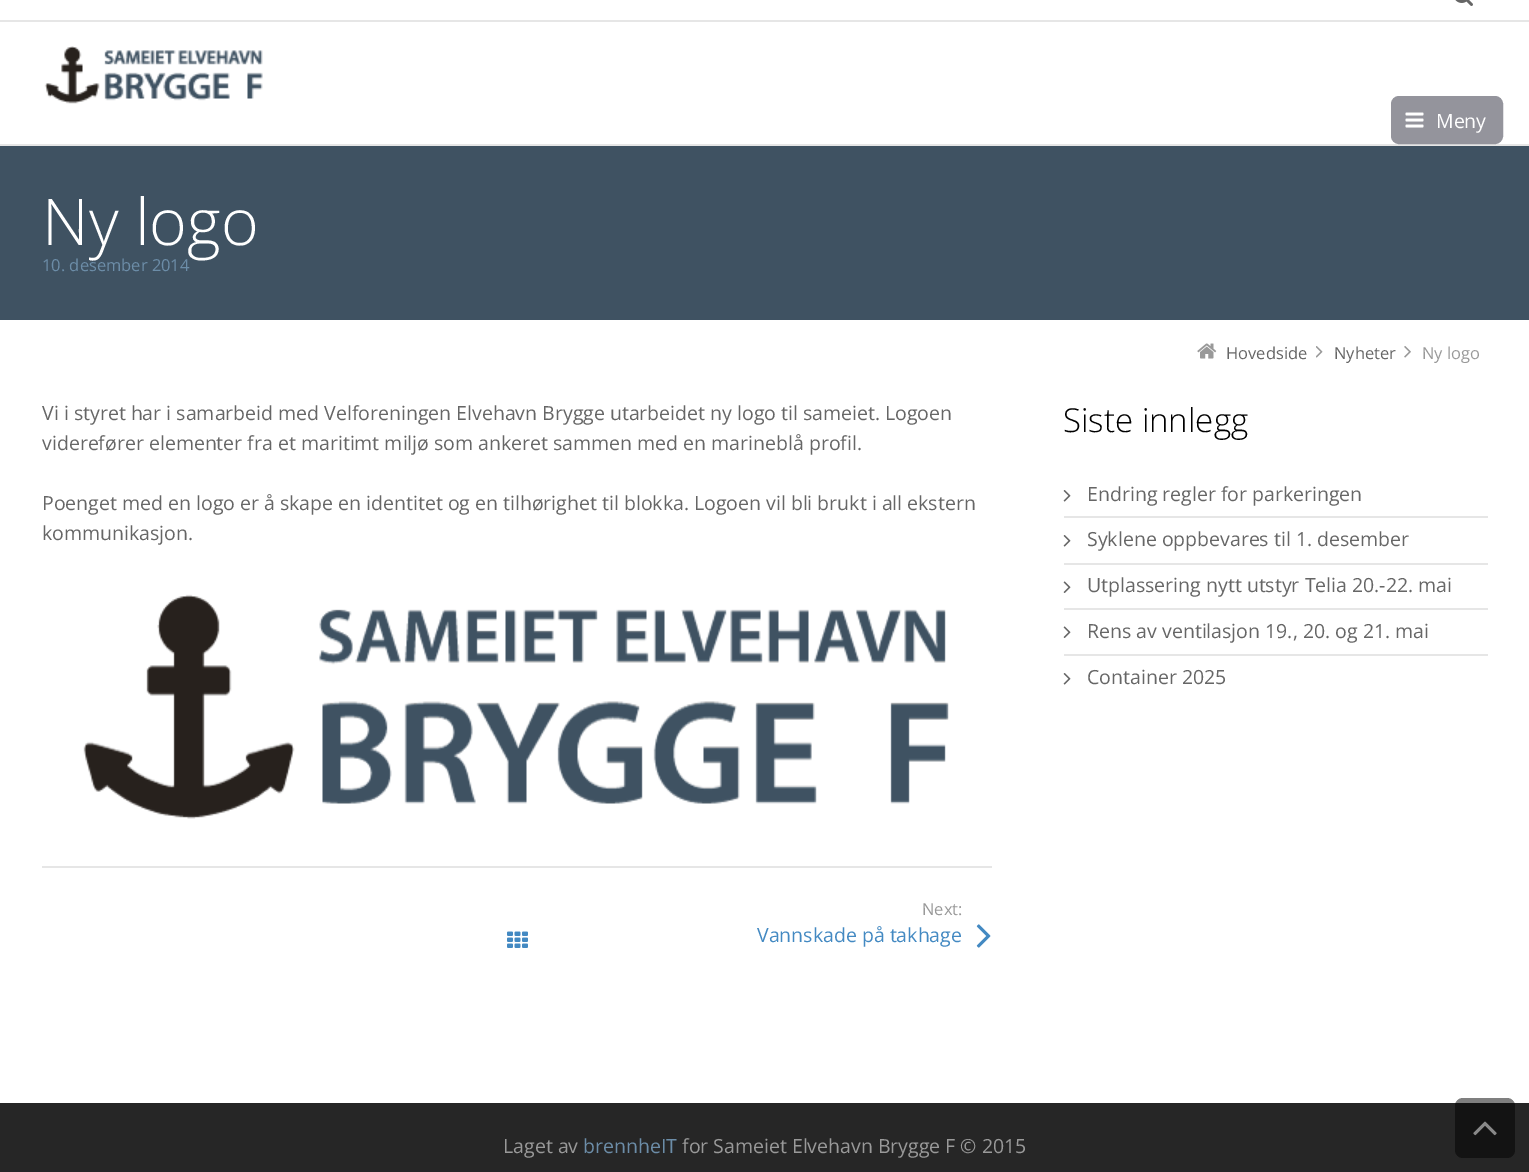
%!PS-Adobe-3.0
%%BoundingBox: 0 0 1529 1172
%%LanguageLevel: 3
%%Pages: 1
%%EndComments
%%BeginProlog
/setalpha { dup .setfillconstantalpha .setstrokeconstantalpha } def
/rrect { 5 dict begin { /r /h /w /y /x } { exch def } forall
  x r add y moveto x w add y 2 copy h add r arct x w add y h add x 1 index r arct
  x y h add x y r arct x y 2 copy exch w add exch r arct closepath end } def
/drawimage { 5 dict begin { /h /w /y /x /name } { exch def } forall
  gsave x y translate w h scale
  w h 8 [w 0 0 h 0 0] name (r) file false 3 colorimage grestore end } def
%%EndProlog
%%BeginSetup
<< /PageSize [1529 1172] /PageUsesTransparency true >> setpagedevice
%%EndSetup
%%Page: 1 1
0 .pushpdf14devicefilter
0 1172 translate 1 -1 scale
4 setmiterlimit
0.149 setgray
0 0 1529 1172 rectfill
1 setgray
0 0 1529 20 rectfill
0.902 setgray
0 20 1529 2 rectfill
(images/1.raw) 1455 0 18 6 drawimage
1 setgray
0 22 1529 122 rectfill
0.902 setgray
0 144 1529 2 rectfill
(images/2.raw) 44 46 219 58 drawimage
0.58 0.58 0.612 setrgbcolor
1392 97 110 46 7 rrect gsave fill grestore
2 setlinewidth
stroke
(images/3.raw) 1405 112 19 16 drawimage
0.247 0.322 0.384 setrgbcolor
0 146 1529 174 rectfill
1 setgray
0 320 1529 783 rectfill
(images/4.raw) 1197 343 20 16 drawimage
(images/5.raw) 1316 346 7 12 drawimage
(images/6.raw) 1404 346 7 12 drawimage
(images/7.raw) 83 594 866 225 drawimage
0.902 setgray
42 866 950 2 rectfill
(images/8.raw) 507 931 21 17 drawimage
(images/9.raw) 976 924 15 24 drawimage
(images/10.raw) 1063 490 8 12 drawimage
1064 516 424 2 rectfill
(images/10.raw) 1063 535 8 12 drawimage
1064 563 424 2 rectfill
(images/11.raw) 1063 581 8 12 drawimage
1064 608 424 2 rectfill
(images/11.raw) 1063 626 8 12 drawimage
1064 654 424 2 rectfill
(images/10.raw) 1063 673 8 12 drawimage
0.5 setalpha
0 setgray
1455 1098 60 60 8 rrect fill
1 setalpha
(images/12.raw) 1473 1121 24 15 drawimage
/OpenSans-Regular [19.5 0 0 -19.5 0 0] selectfont
1 setgray
1436 128 moveto (Meny) show
/OpenSans-Light [64.5 0 0 -64.5 0 0] selectfont
42 245 moveto (Ny logo) show
/OpenSans-Regular [16.5 0 0 -16.5 0 0] selectfont
0.424 0.553 0.659 setrgbcolor
42 271 moveto (10. desember 2014) show
0.4 setgray
1226 359 moveto (Hovedside) show
1334 359 moveto (Nyheter) show
0.6 setgray
1422 359 moveto (Ny logo) show
/OpenSans-Regular [19.5 0 0 -19.5 0 0] selectfont
0.4 setgray
42 420 moveto (Vi i styret har i samarbeid med Velforeningen Elvehavn Brygge utarbeidet ny logo til sameiet. Logoen) show
42 450 moveto (viderefører elementer fra et maritimt miljø som ankeret sammen med en marineblå profil.) show
42 510 moveto (Poenget med en logo er å skape en identitet og en tilhørighet til blokka. Logoen vil bli brukt i all ekstern) show
42 540 moveto (kommunikasjon.) show
/OpenSans-Regular [16.5 0 0 -16.5 0 0] selectfont
0.6 setgray
922 915 moveto (Next:) show
/OpenSans-Regular [19.5 0 0 -19.5 0 0] selectfont
0.263 0.537 0.761 setrgbcolor
757 942 moveto (Vannskade på takhage) show
/OpenSans-Light [33 0 0 -33 0 0] selectfont
0 setgray
1063 432 moveto (Siste innlegg) show
/OpenSans-Regular [19.5 0 0 -19.5 0 0] selectfont
0.4 setgray
1087 501 moveto (Endring regler for parkeringen) show
1087 546 moveto (Syklene oppbevares til 1. desember) show
1087 592 moveto (Utplassering nytt utstyr Telia 20.-22. mai) show
1087 638 moveto (Rens av ventilasjon 19., 20. og 21. mai) show
1087 684 moveto (Container 2025) show
0.6 setgray
503 1153 moveto (Laget av) show
0.424 0.553 0.659 setrgbcolor
583 1153 moveto (brennheIT) show
0.6 setgray
682 1153 moveto (for Sameiet Elvehavn Brygge F © 2015) show
.poppdf14devicefilter showpage
%%EOF
